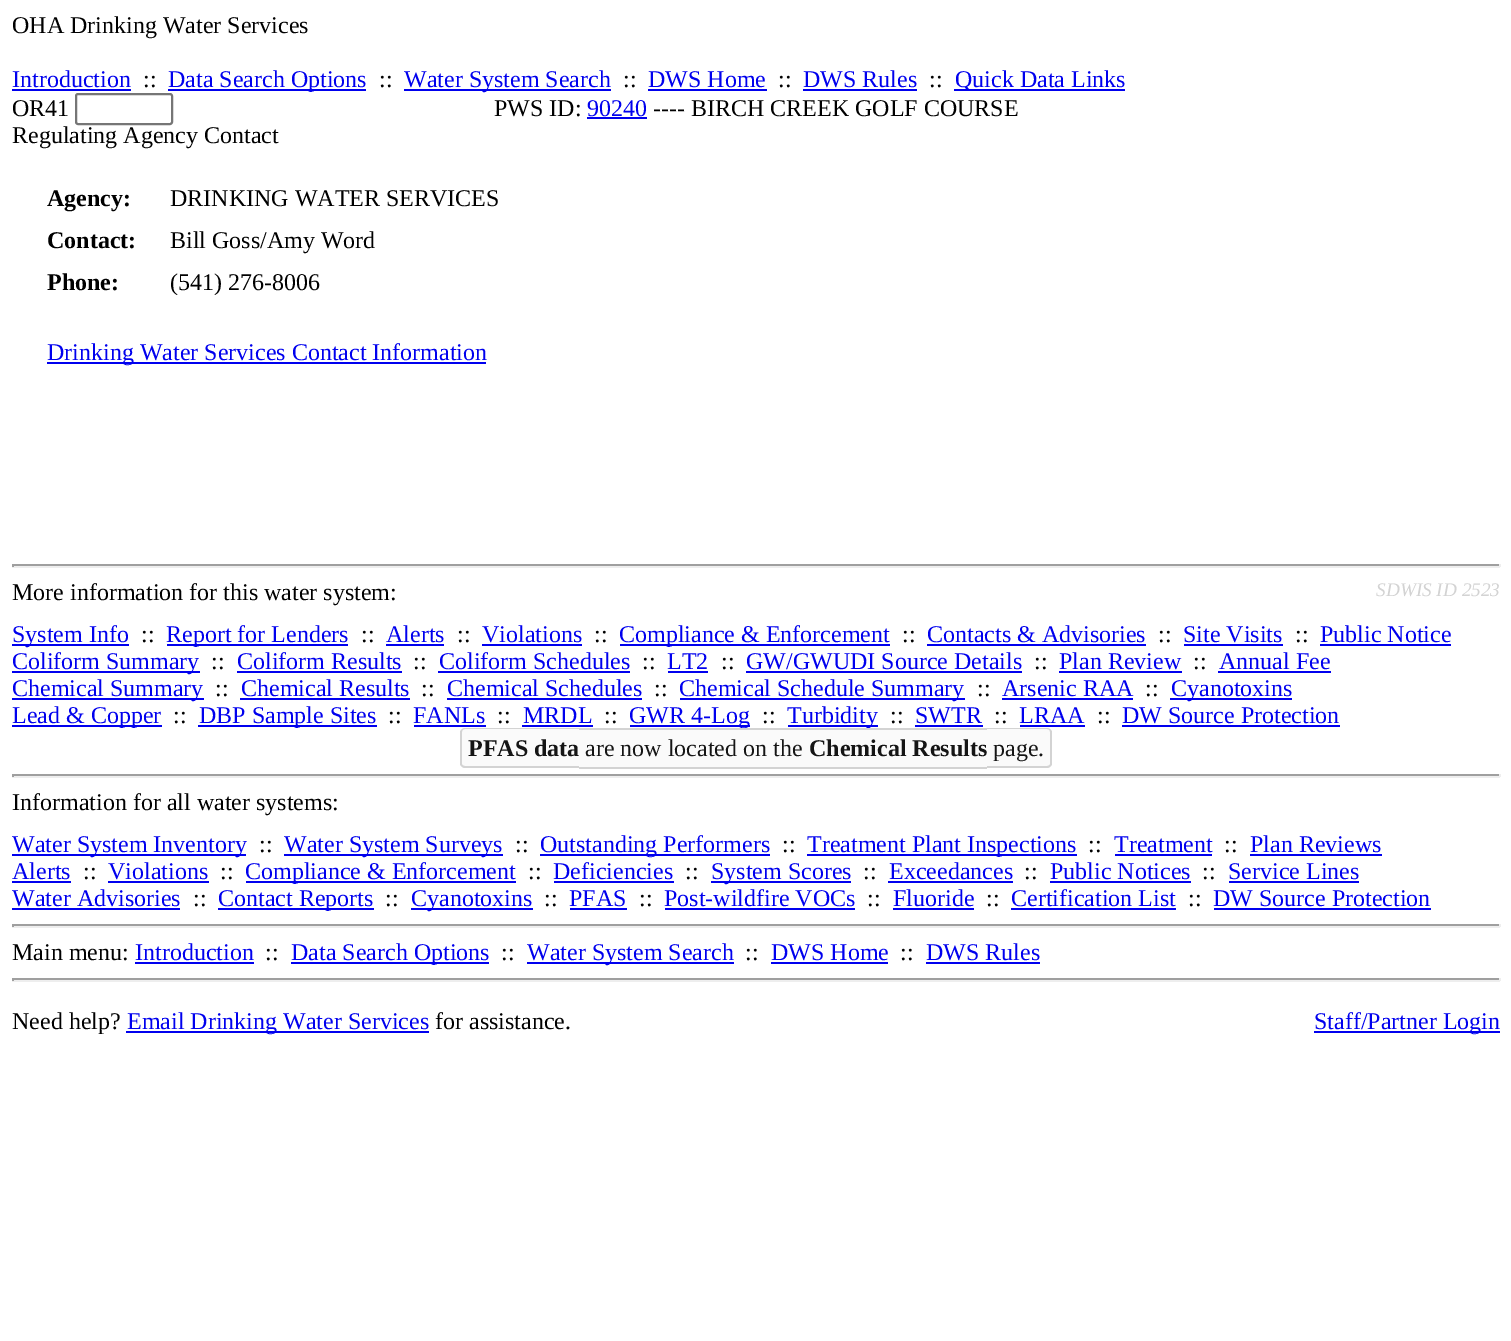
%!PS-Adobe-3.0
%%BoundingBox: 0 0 1511 1341
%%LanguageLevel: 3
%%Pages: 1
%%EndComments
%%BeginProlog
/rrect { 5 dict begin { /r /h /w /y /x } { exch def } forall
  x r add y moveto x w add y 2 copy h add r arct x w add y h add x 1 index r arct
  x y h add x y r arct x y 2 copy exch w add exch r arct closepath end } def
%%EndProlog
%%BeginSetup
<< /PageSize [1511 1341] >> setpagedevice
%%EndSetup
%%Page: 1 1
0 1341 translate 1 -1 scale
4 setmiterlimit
1 setgray
0 0 1511 1341 rectfill
0 0 0.933 setrgbcolor
12 89 119 2 rectfill
168 89 198 2 rectfill
404 89 207 2 rectfill
648 89 119 2 rectfill
803 89 114 2 rectfill
954 89 171 2 rectfill
0.463 setgray
2 setlinewidth
76 94 96 30 2 rrect stroke
0 0 0.933 setrgbcolor
587 117 60 2 rectfill
47 362 439 2 rectfill
0.624 setgray
12 564 1488 2 rectfill
0.933 setgray
1499 564 2 3 rectfill
12 566 1488 2 rectfill
0.624 setgray
12 564 2 3 rectfill
0 0 0.933 setrgbcolor
12 644 117 2 rectfill
167 644 181 2 rectfill
386 644 58 2 rectfill
482 644 100 2 rectfill
620 644 270 2 rectfill
927 644 219 2 rectfill
1184 644 99 2 rectfill
1320 644 131 2 rectfill
12 671 188 2 rectfill
237 671 165 2 rectfill
438 671 192 2 rectfill
668 671 40 2 rectfill
746 671 276 2 rectfill
1059 671 123 2 rectfill
1218 671 113 2 rectfill
12 698 192 2 rectfill
240 698 170 2 rectfill
447 698 195 2 rectfill
680 698 285 2 rectfill
1002 698 131 2 rectfill
1170 698 122 2 rectfill
12 725 150 2 rectfill
198 725 179 2 rectfill
414 725 72 2 rectfill
522 725 71 2 rectfill
630 725 120 2 rectfill
788 725 90 2 rectfill
915 725 68 2 rectfill
1020 725 65 2 rectfill
1122 725 218 2 rectfill
0.98 setgray
newpath 466 728 moveto 579 728 lineto 579 768 lineto 466 768 lineto 463 768 461 766 461 763 curveto 461 733 lineto 461 730 463 728 466 728 curveto closepath fill
0.827 setgray
newpath 465 728 moveto 579 728 lineto 579 768 lineto 465 768 lineto 463 768 460 766 460 764 curveto 460 732 lineto 460 730 463 728 465 728 curveto closepath 465 729 moveto 579 729 lineto 579 766 lineto 465 766 lineto 463 766 462 765 462 764 curveto 462 732 lineto 462 730 463 729 465 729 curveto closepath eofill
0.98 setgray
579 730 408 37 rectfill
newpath 987 728 moveto 1047 728 lineto 1050 728 1052 730 1052 733 curveto 1052 763 lineto 1052 766 1050 768 1047 768 curveto 987 768 lineto closepath fill
0.827 setgray
newpath 987 728 moveto 1047 728 lineto 1049 728 1052 730 1052 732 curveto 1052 764 lineto 1052 766 1049 768 1047 768 curveto 987 768 lineto closepath 987 729 moveto 1047 729 lineto 1049 729 1050 730 1050 732 curveto 1050 764 lineto 1050 765 1049 766 1047 766 curveto 987 766 lineto closepath eofill
579 767 408 2 rectfill
0.624 setgray
12 774 1488 2 rectfill
0.933 setgray
1499 774 2 3 rectfill
12 776 1488 2 rectfill
0.624 setgray
12 774 2 3 rectfill
0 0 0.933 setrgbcolor
12 854 234 2 rectfill
284 854 219 2 rectfill
540 854 230 2 rectfill
807 854 270 2 rectfill
1115 854 97 2 rectfill
1250 854 132 2 rectfill
12 881 59 2 rectfill
108 881 101 2 rectfill
246 881 270 2 rectfill
554 881 120 2 rectfill
711 881 140 2 rectfill
888 881 125 2 rectfill
1050 881 141 2 rectfill
1229 881 130 2 rectfill
12 908 168 2 rectfill
218 908 156 2 rectfill
411 908 122 2 rectfill
570 908 57 2 rectfill
665 908 190 2 rectfill
893 908 81 2 rectfill
1011 908 165 2 rectfill
1214 908 217 2 rectfill
0.624 setgray
12 924 1488 2 rectfill
0.933 setgray
1499 924 2 3 rectfill
12 926 1488 2 rectfill
0.624 setgray
12 924 2 3 rectfill
0 0 0.933 setrgbcolor
135 962 119 2 rectfill
291 962 198 2 rectfill
527 962 207 2 rectfill
771 962 117 2 rectfill
926 962 114 2 rectfill
0.624 setgray
12 978 1488 2 rectfill
0.933 setgray
1499 978 2 3 rectfill
12 980 1488 2 rectfill
0.624 setgray
12 978 2 3 rectfill
0 0 0.933 setrgbcolor
126 1031 303 2 rectfill
1314 1031 186 2 rectfill
/LiberationSerif-Regular [24 0 0 -24 0 0] selectfont
0 setgray
12 33 moveto (OHA Drinking Water Services) show
0 0 0.933 setrgbcolor
12 87 moveto (Introduction) show
0 setgray
143 87 moveto (::) show
0 0 0.933 setrgbcolor
168 87 moveto (Data Search Options) show
0 setgray
379 87 moveto (::) show
0 0 0.933 setrgbcolor
404 87 moveto (Water System Search) show
0 setgray
623 87 moveto (::) show
0 0 0.933 setrgbcolor
648 87 moveto (DWS Home) show
0 setgray
778 87 moveto (::) show
0 0 0.933 setrgbcolor
803 87 moveto (DWS Rules) show
0 setgray
929 87 moveto (::) show
0 0 0.933 setrgbcolor
955 87 moveto (Quick Data Links) show
0 setgray
12 116 moveto (OR41) show
494 116 moveto (PWS ID:) show
0 0 0.933 setrgbcolor
587 116 moveto (90240) show
0 setgray
653 116 moveto (---- BIRCH CREEK GOLF COURSE) show
12 143 moveto (Regulating Agency Contact) show
/LiberationSerif-Bold [24 0 0 -24 0 0] selectfont
47 206 moveto (Agency:) show
/LiberationSerif-Regular [24 0 0 -24 0 0] selectfont
170 206 moveto (DRINKING WATER SERVICES) show
/LiberationSerif-Bold [24 0 0 -24 0 0] selectfont
47 248 moveto (Contact:) show
/LiberationSerif-Regular [24 0 0 -24 0 0] selectfont
170 248 moveto (Bill Goss/Amy Word) show
/LiberationSerif-Bold [24 0 0 -24 0 0] selectfont
47 290 moveto (Phone:) show
/LiberationSerif-Regular [24 0 0 -24 0 0] selectfont
170 290 moveto (\(541\) 276-8006) show
0 0 0.933 setrgbcolor
47 360 moveto (Drinking Water Services Contact Information) show
0 setgray
12 600 moveto (More information for this water system:) show
/LiberationSerif-Italic [19.25 0 0 -19.25 0 0] selectfont
0.827 setgray
1376 596 moveto (SDWIS ID 2523) show
/LiberationSerif-Regular [24 0 0 -24 0 0] selectfont
0 0 0.933 setrgbcolor
12 642 moveto (System Info) show
0 setgray
141 642 moveto (::) show
0 0 0.933 setrgbcolor
166 642 moveto (Report for Lenders) show
0 setgray
361 642 moveto (::) show
0 0 0.933 setrgbcolor
386 642 moveto (Alerts) show
0 setgray
457 642 moveto (::) show
0 0 0.933 setrgbcolor
482 642 moveto (Violations) show
0 setgray
594 642 moveto (::) show
0 0 0.933 setrgbcolor
619 642 moveto (Compliance & Enforcement) show
0 setgray
902 642 moveto (::) show
0 0 0.933 setrgbcolor
927 642 moveto (Contacts & Advisories) show
0 setgray
1158 642 moveto (::) show
0 0 0.933 setrgbcolor
1183 642 moveto (Site Visits) show
0 setgray
1295 642 moveto (::) show
0 0 0.933 setrgbcolor
1320 642 moveto (Public Notice) show
12 669 moveto (Coliform Summary) show
0 setgray
211 669 moveto (::) show
0 0 0.933 setrgbcolor
237 669 moveto (Coliform Results) show
0 setgray
413 669 moveto (::) show
0 0 0.933 setrgbcolor
439 669 moveto (Coliform Schedules) show
0 setgray
642 669 moveto (::) show
0 0 0.933 setrgbcolor
667 669 moveto (LT2) show
0 setgray
721 669 moveto (::) show
0 0 0.933 setrgbcolor
746 669 moveto (GW/GWUDI Source Details) show
0 setgray
1034 669 moveto (::) show
0 0 0.933 setrgbcolor
1059 669 moveto (Plan Review) show
0 setgray
1193 669 moveto (::) show
0 0 0.933 setrgbcolor
1219 669 moveto (Annual Fee) show
12 696 moveto (Chemical Summary) show
0 setgray
215 696 moveto (::) show
0 0 0.933 setrgbcolor
241 696 moveto (Chemical Results) show
0 setgray
421 696 moveto (::) show
0 0 0.933 setrgbcolor
447 696 moveto (Chemical Schedules) show
0 setgray
654 696 moveto (::) show
0 0 0.933 setrgbcolor
679 696 moveto (Chemical Schedule Summary) show
0 setgray
977 696 moveto (::) show
0 0 0.933 setrgbcolor
1002 696 moveto (Arsenic RAA) show
0 setgray
1145 696 moveto (::) show
0 0 0.933 setrgbcolor
1171 696 moveto (Cyanotoxins) show
12 723 moveto (Lead & Copper) show
0 setgray
173 723 moveto (::) show
0 0 0.933 setrgbcolor
199 723 moveto (DBP Sample Sites) show
0 setgray
388 723 moveto (::) show
0 0 0.933 setrgbcolor
413 723 moveto (FANLs) show
0 setgray
497 723 moveto (::) show
0 0 0.933 setrgbcolor
523 723 moveto (MRDL) show
0 setgray
604 723 moveto (::) show
0 0 0.933 setrgbcolor
629 723 moveto (GWR 4-Log) show
0 setgray
762 723 moveto (::) show
0 0 0.933 setrgbcolor
787 723 moveto (Turbidity) show
0 setgray
890 723 moveto (::) show
0 0 0.933 setrgbcolor
915 723 moveto (SWTR) show
0 setgray
994 723 moveto (::) show
0 0 0.933 setrgbcolor
1019 723 moveto (LRAA) show
0 setgray
1097 723 moveto (::) show
0 0 0.933 setrgbcolor
1122 723 moveto (DW Source Protection) show
/LiberationSerif-Bold [24 0 0 -24 0 0] selectfont
0.082 setgray
468 756 moveto (PFAS data) show
0.827 setgray
579 728 408 2 rectfill
/LiberationSerif-Regular [24 0 0 -24 0 0] selectfont
0.082 setgray
585 756 moveto (are now located on the) show
/LiberationSerif-Bold [24 0 0 -24 0 0] selectfont
809 756 moveto (Chemical Results) show
/LiberationSerif-Regular [24 0 0 -24 0 0] selectfont
993 756 moveto (page.) show
0 setgray
12 810 moveto (Information for all water systems:) show
0 0 0.933 setrgbcolor
12 852 moveto (Water System Inventory) show
0 setgray
259 852 moveto (::) show
0 0 0.933 setrgbcolor
284 852 moveto (Water System Surveys) show
0 setgray
515 852 moveto (::) show
0 0 0.933 setrgbcolor
540 852 moveto (Outstanding Performers) show
0 setgray
782 852 moveto (::) show
0 0 0.933 setrgbcolor
807 852 moveto (Treatment Plant Inspections) show
0 setgray
1088 852 moveto (::) show
0 0 0.933 setrgbcolor
1114 852 moveto (Treatment) show
0 setgray
1224 852 moveto (::) show
0 0 0.933 setrgbcolor
1250 852 moveto (Plan Reviews) show
12 879 moveto (Alerts) show
0 setgray
83 879 moveto (::) show
0 0 0.933 setrgbcolor
108 879 moveto (Violations) show
0 setgray
220 879 moveto (::) show
0 0 0.933 setrgbcolor
245 879 moveto (Compliance & Enforcement) show
0 setgray
528 879 moveto (::) show
0 0 0.933 setrgbcolor
553 879 moveto (Deficiencies) show
0 setgray
685 879 moveto (::) show
0 0 0.933 setrgbcolor
711 879 moveto (System Scores) show
0 setgray
863 879 moveto (::) show
0 0 0.933 setrgbcolor
889 879 moveto (Exceedances) show
0 setgray
1024 879 moveto (::) show
0 0 0.933 setrgbcolor
1050 879 moveto (Public Notices) show
0 setgray
1202 879 moveto (::) show
0 0 0.933 setrgbcolor
1228 879 moveto (Service Lines) show
12 906 moveto (Water Advisories) show
0 setgray
193 906 moveto (::) show
0 0 0.933 setrgbcolor
218 906 moveto (Contact Reports) show
0 setgray
385 906 moveto (::) show
0 0 0.933 setrgbcolor
411 906 moveto (Cyanotoxins) show
0 setgray
544 906 moveto (::) show
0 0 0.933 setrgbcolor
569 906 moveto (PFAS) show
0 setgray
639 906 moveto (::) show
0 0 0.933 setrgbcolor
664 906 moveto (Post-wildfire VOCs) show
0 setgray
867 906 moveto (::) show
0 0 0.933 setrgbcolor
893 906 moveto (Fluoride) show
0 setgray
986 906 moveto (::) show
0 0 0.933 setrgbcolor
1011 906 moveto (Certification List) show
0 setgray
1188 906 moveto (::) show
0 0 0.933 setrgbcolor
1213 906 moveto (DW Source Protection) show
0 setgray
12 960 moveto (Main menu:) show
0 0 0.933 setrgbcolor
135 960 moveto (Introduction) show
0 setgray
265 960 moveto (::) show
0 0 0.933 setrgbcolor
291 960 moveto (Data Search Options) show
0 setgray
501 960 moveto (::) show
0 0 0.933 setrgbcolor
527 960 moveto (Water System Search) show
0 setgray
745 960 moveto (::) show
0 0 0.933 setrgbcolor
771 960 moveto (DWS Home) show
0 setgray
900 960 moveto (::) show
0 0 0.933 setrgbcolor
926 960 moveto (DWS Rules) show
0 setgray
12 1029 moveto (Need help?) show
0 0 0.933 setrgbcolor
127 1029 moveto (Email Drinking Water Services) show
0 setgray
435 1029 moveto (for assistance.) show
0 0 0.933 setrgbcolor
1314 1029 moveto (Staff/Partner Login) show
showpage
%%EOF
